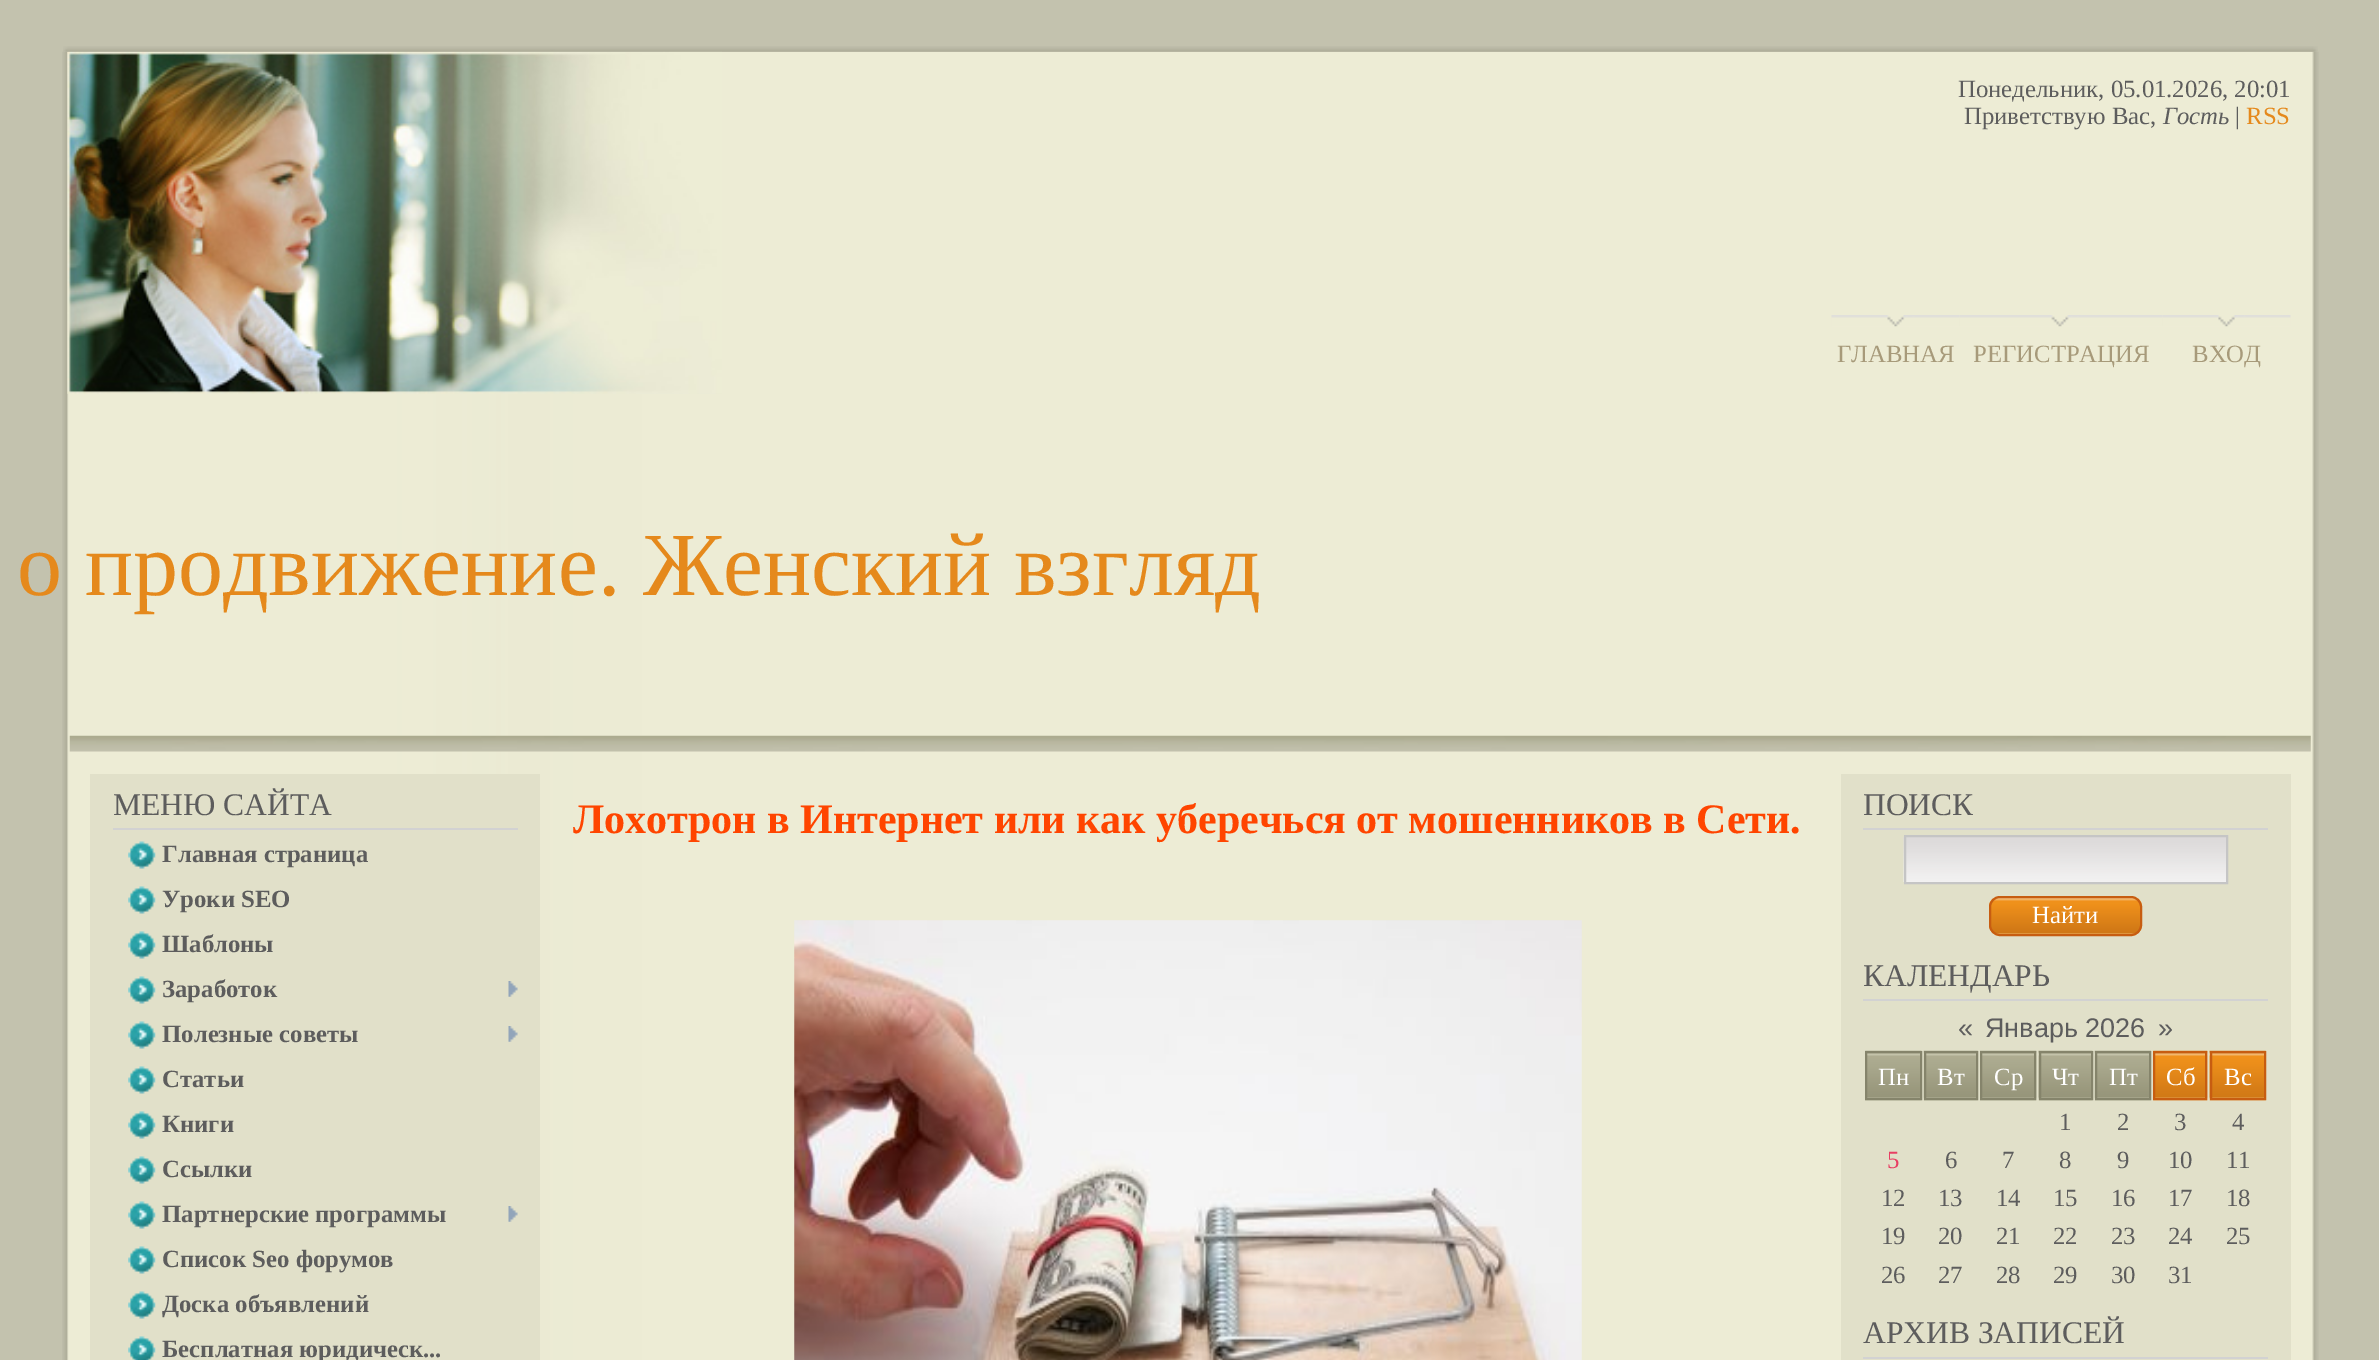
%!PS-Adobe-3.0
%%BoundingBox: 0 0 2379 1360
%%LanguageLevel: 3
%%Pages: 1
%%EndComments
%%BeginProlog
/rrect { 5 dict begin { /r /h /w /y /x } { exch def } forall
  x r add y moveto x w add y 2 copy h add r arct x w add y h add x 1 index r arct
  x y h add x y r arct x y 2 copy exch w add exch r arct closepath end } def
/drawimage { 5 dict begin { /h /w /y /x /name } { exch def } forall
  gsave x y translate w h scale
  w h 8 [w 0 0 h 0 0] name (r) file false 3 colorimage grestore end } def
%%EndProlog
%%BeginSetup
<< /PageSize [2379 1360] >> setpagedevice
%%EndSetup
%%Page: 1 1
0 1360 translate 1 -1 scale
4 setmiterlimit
0.765 0.761 0.682 setrgbcolor
0 0 2379 1360 rectfill
(images/2.raw) 62 51 2257 1309 drawimage
(images/6.raw) 67 51 655 343 drawimage
(images/1.raw) 63 46 2255 6 drawimage
(images/3.raw) 1831 315 129 12 drawimage
(images/4.raw) 1960 315 202 12 drawimage
(images/5.raw) 2162 315 129 12 drawimage
(images/7.raw) 69 735 2242 17 drawimage
0.882 0.878 0.788 setrgbcolor
90 774 450 586 rectfill
0.824 setgray
113 828 405 2 rectfill
(images/8.raw) 128 841 28 28 drawimage
(images/9.raw) 128 886 28 28 drawimage
(images/9.raw) 128 931 28 28 drawimage
(images/9.raw) 128 976 28 28 drawimage
(images/10.raw) 508 981 10 16 drawimage
(images/9.raw) 128 1021 28 28 drawimage
(images/10.raw) 508 1026 10 16 drawimage
(images/9.raw) 128 1066 28 28 drawimage
(images/9.raw) 128 1111 28 28 drawimage
(images/11.raw) 128 1156 28 28 drawimage
(images/9.raw) 128 1201 28 28 drawimage
(images/10.raw) 508 1206 10 16 drawimage
(images/9.raw) 128 1246 28 28 drawimage
(images/12.raw) 128 1291 28 28 drawimage
(images/13.raw) 128 1336 28 24 drawimage
(images/14.raw) 794 920 788 440 drawimage
0.882 0.878 0.788 setrgbcolor
1841 774 450 586 rectfill
0.824 setgray
1863 828 405 2 rectfill
(images/15.raw) 1903 837 323 45 drawimage
0.773 setgray
2 setlinewidth
1905 836 322 47 rectstroke
(images/16.raw) 1989 897 153 39 drawimage
0.78 0.365 0.067 setrgbcolor
1990 897 151 38 10 rrect stroke
0.824 setgray
1863 999 405 2 rectfill
(images/17.raw) 1865 1050 57 51 drawimage
0.522 0.518 0.42 setrgbcolor
1866 1052 55 47 rectstroke
(images/18.raw) 1923 1050 55 51 drawimage
1925 1052 52 47 rectstroke
(images/19.raw) 1980 1050 57 51 drawimage
1981 1052 54 47 rectstroke
(images/20.raw) 2038 1050 55 51 drawimage
2040 1052 52 47 rectstroke
(images/21.raw) 2094 1050 57 51 drawimage
2096 1052 54 47 rectstroke
(images/22.raw) 2153 1050 55 51 drawimage
0.78 0.365 0.067 setrgbcolor
2154 1052 52 47 rectstroke
(images/23.raw) 2209 1050 57 51 drawimage
2211 1052 54 47 rectstroke
0.824 setgray
1863 1357 405 2 rectfill
/LiberationSerif-Regular [24.75 0 0 -24.75 0 0] selectfont
0.365 setgray
1958 97 moveto (Понедельник, 05.01.2026, 20:01) show
1964 124 moveto (Приветствую Вас,) show
/LiberationSerif-Italic [24.75 0 0 -24.75 0 0] selectfont
2163 124 moveto (Гость) show
/LiberationSerif-Regular [24.75 0 0 -24.75 0 0] selectfont
2235 124 moveto (|) show
0.898 0.537 0.11 setrgbcolor
2246 124 moveto (RSS) show
0.655 0.604 0.478 setrgbcolor
1837 362 moveto (ГЛАВНАЯ) show
1973 362 moveto (РЕГИСТРАЦИЯ) show
2192 362 moveto (ВХОД) show
/LiberationSerif-Regular [90 0 0 -90 0 0] selectfont
0.898 0.537 0.11 setrgbcolor
17 595 moveto (о продвижение. Женский взгляд) show
/LiberationSerif-Regular [31.5 0 0 -31.5 0 0] selectfont
0.365 setgray
113 815 moveto (МЕНЮ САЙТА) show
/LiberationSerif-Bold [24.75 0 0 -24.75 0 0] selectfont
162 862 moveto (Главная страница) show
162 907 moveto (Уроки SEO) show
162 952 moveto (Шаблоны) show
162 997 moveto (Заработок) show
162 1042 moveto (Полезные советы) show
162 1087 moveto (Статьи) show
162 1132 moveto (Книги) show
162 1177 moveto (Ссылки) show
162 1222 moveto (Партнерские программы) show
162 1267 moveto (Список Sео форумов) show
162 1312 moveto (Доска объявлений) show
162 1357 moveto (Бесплатная юридическ...) show
/LiberationSerif-Bold [42 0 0 -42 0 0] selectfont
1 0.271 0 setrgbcolor
573 833 moveto (Лохотрон в Интернет или как уберечься от мошенников в Сети.) show
/LiberationSerif-Regular [31.5 0 0 -31.5 0 0] selectfont
0.365 setgray
1863 815 moveto (ПОИСК) show
/LiberationSerif-Regular [24.75 0 0 -24.75 0 0] selectfont
1 setgray
2032 923 moveto (Найти) show
/LiberationSerif-Regular [31.5 0 0 -31.5 0 0] selectfont
0.365 setgray
1863 986 moveto (КАЛЕНДАРЬ) show
/LiberationSans-Regular [27 0 0 -27 0 0] selectfont
1958 1037 moveto («) show
1985 1037 moveto (Январь 2026) show
2158 1037 moveto (») show
/LiberationSerif-Regular [24.75 0 0 -24.75 0 0] selectfont
1 setgray
1878 1085 moveto (Пн) show
1937 1085 moveto (Вт) show
1994 1085 moveto (Ср) show
2052 1085 moveto (Чт) show
2109 1085 moveto (Пт) show
2166 1085 moveto (Сб) show
2224 1085 moveto (Вс) show
0.365 setgray
2059 1130 moveto (1) show
2117 1130 moveto (2) show
2174 1130 moveto (3) show
2232 1130 moveto (4) show
0.91 0.247 0.388 setrgbcolor
1887 1168 moveto (5) show
0.365 setgray
1945 1168 moveto (6) show
2002 1168 moveto (7) show
2059 1168 moveto (8) show
2117 1168 moveto (9) show
2168 1168 moveto (10) show
2226 1168 moveto (11) show
1881 1206 moveto (12) show
1938 1206 moveto (13) show
1996 1206 moveto (14) show
2053 1206 moveto (15) show
2111 1206 moveto (16) show
2168 1206 moveto (17) show
2226 1206 moveto (18) show
1881 1244 moveto (19) show
1938 1244 moveto (20) show
1996 1244 moveto (21) show
2053 1244 moveto (22) show
2111 1244 moveto (23) show
2168 1244 moveto (24) show
2226 1244 moveto (25) show
1881 1283 moveto (26) show
1938 1283 moveto (27) show
1996 1283 moveto (28) show
2053 1283 moveto (29) show
2111 1283 moveto (30) show
2168 1283 moveto (31) show
/LiberationSerif-Regular [31.5 0 0 -31.5 0 0] selectfont
1863 1343 moveto (АРХИВ ЗАПИСЕЙ) show
showpage
%%EOF
